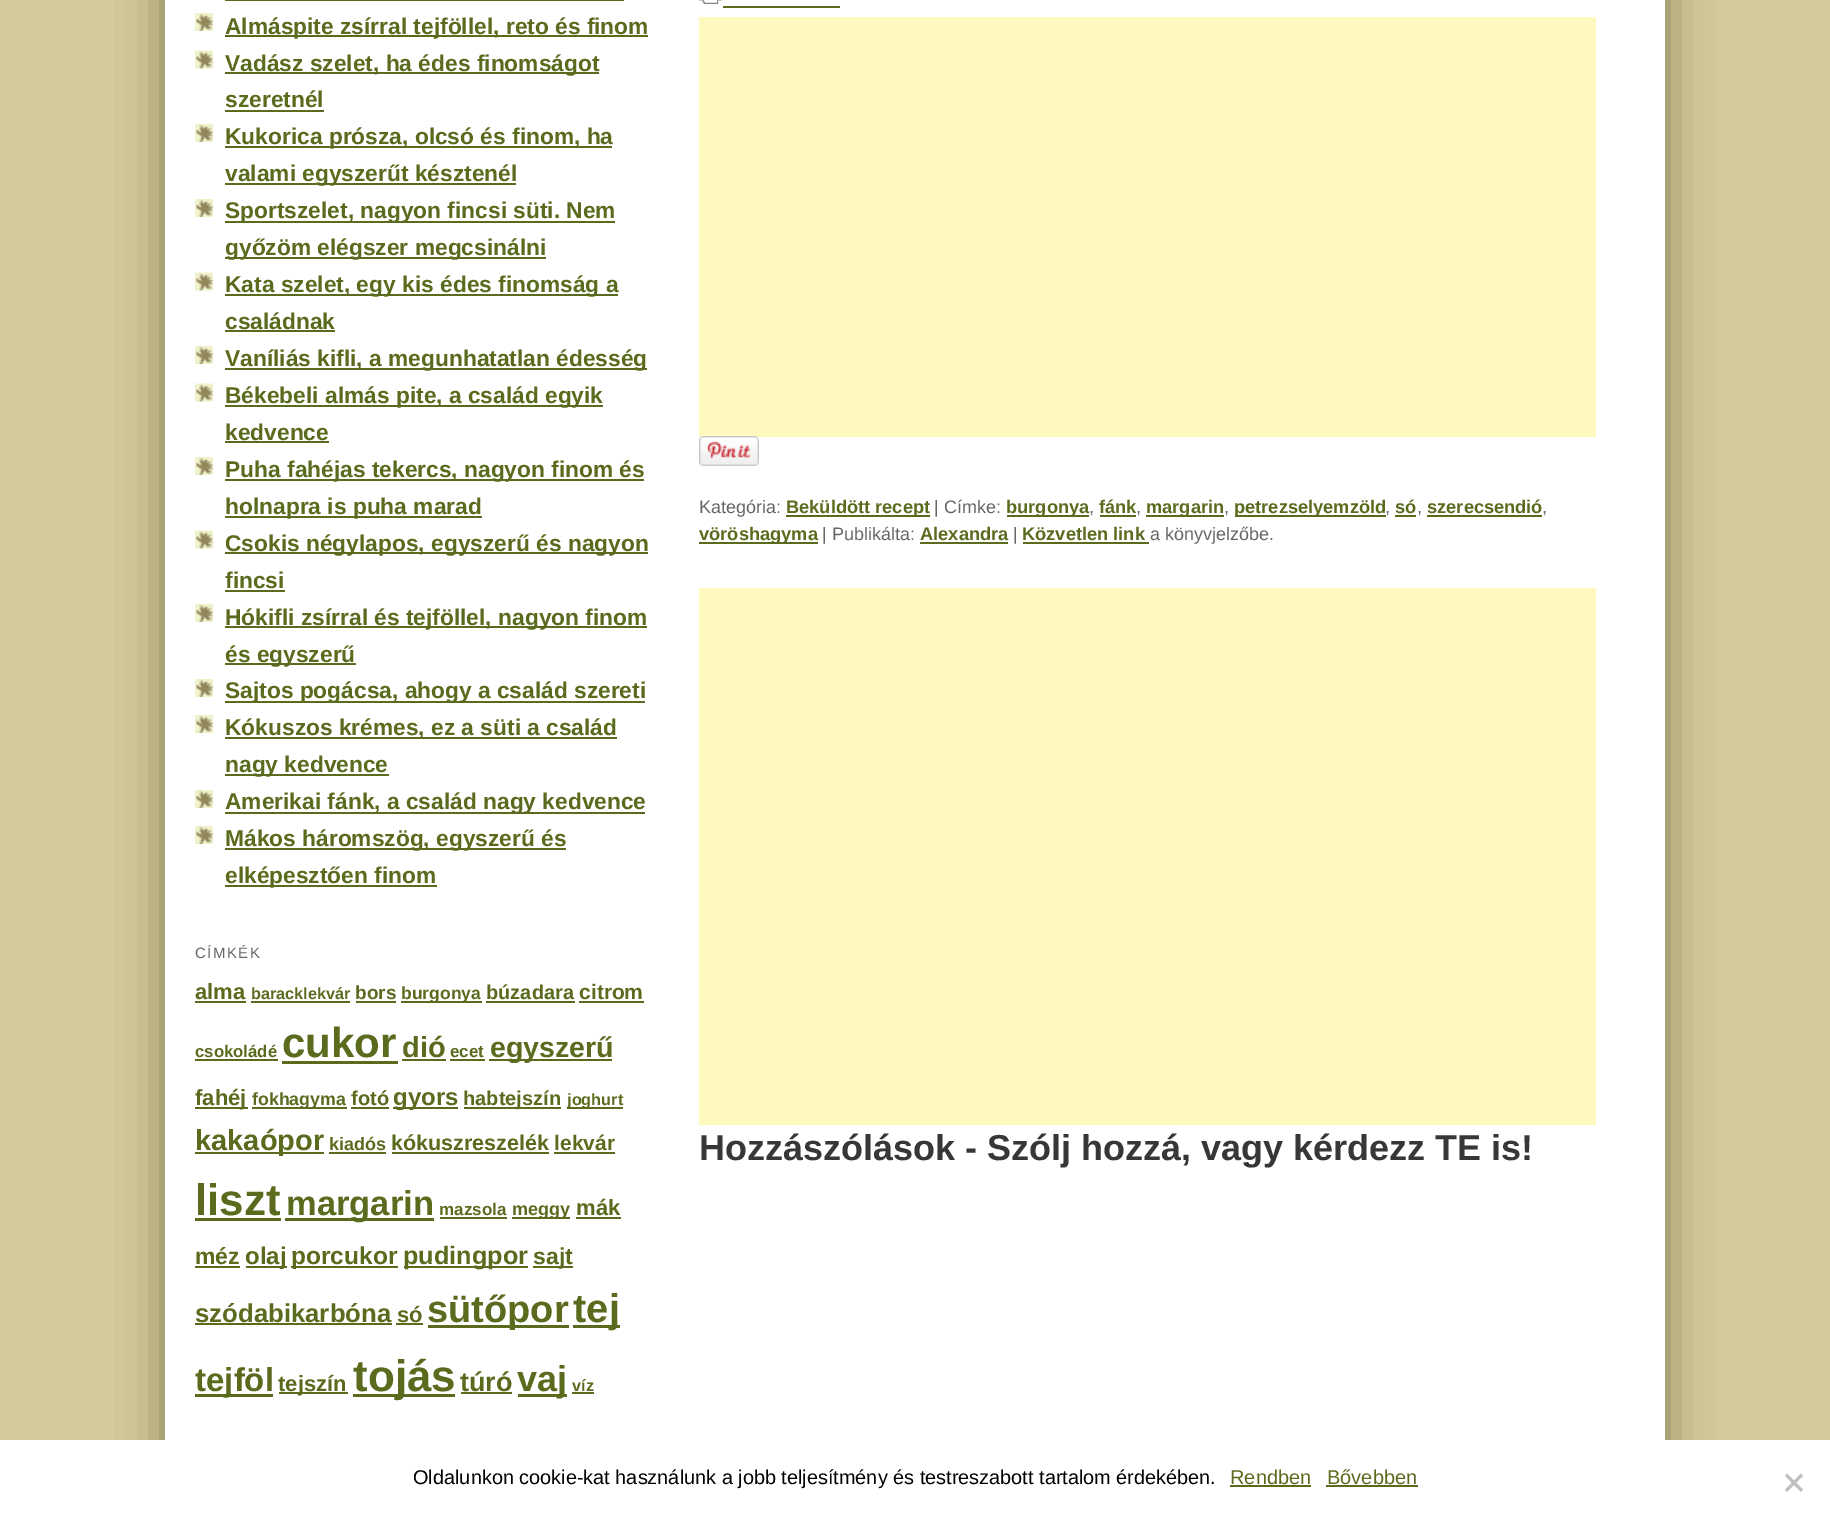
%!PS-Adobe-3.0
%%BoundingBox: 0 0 1830 1524
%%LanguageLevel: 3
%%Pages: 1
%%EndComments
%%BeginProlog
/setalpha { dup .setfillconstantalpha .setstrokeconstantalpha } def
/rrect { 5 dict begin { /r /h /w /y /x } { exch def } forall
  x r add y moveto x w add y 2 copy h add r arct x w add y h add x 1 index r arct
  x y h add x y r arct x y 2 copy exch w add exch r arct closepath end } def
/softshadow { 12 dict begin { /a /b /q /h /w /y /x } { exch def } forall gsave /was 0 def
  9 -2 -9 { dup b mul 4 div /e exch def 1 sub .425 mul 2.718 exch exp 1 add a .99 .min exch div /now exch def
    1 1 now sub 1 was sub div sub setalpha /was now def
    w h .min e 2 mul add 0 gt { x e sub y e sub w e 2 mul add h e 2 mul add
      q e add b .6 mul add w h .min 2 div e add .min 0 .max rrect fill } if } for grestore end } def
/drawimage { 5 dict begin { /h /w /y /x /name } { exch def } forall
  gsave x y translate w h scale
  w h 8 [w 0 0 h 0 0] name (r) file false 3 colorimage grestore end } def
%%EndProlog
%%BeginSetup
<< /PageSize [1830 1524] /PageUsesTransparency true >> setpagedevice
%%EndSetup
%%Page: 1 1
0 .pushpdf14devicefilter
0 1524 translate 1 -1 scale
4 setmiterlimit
0.831 0.796 0.616 setrgbcolor
0 0 1830 1524 rectfill
0.506 0.475 0.294 setrgbcolor
165 -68 1500 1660 0 22.5 1 softshadow
1 setgray
165 0 1500 1440 rectfill
0.353 0.42 0.118 setrgbcolor
225 0 399 1 rectfill
(images/1.raw) 195 13 18 18 drawimage
225 35 423 2 rectfill
(images/2.raw) 195 50 18 19 drawimage
225 72 374 2 rectfill
225 110 99 2 rectfill
(images/1.raw) 195 124 18 18 drawimage
225 146 387 2 rectfill
225 183 291 2 rectfill
(images/1.raw) 195 199 18 18 drawimage
225 221 390 2 rectfill
225 257 321 2 rectfill
(images/2.raw) 195 272 18 19 drawimage
225 294 393 2 rectfill
225 330 110 2 rectfill
(images/1.raw) 195 346 18 18 drawimage
225 368 422 2 rectfill
(images/2.raw) 195 383 18 19 drawimage
225 405 378 2 rectfill
225 441 104 2 rectfill
(images/1.raw) 195 457 18 18 drawimage
225 479 419 2 rectfill
225 516 257 2 rectfill
(images/2.raw) 195 530 18 19 drawimage
225 552 423 2 rectfill
225 590 60 2 rectfill
(images/1.raw) 195 604 18 18 drawimage
225 626 422 2 rectfill
225 663 131 2 rectfill
(images/1.raw) 195 679 18 18 drawimage
225 701 420 2 rectfill
(images/1.raw) 195 715 18 18 drawimage
225 737 392 2 rectfill
225 774 164 2 rectfill
(images/1.raw) 195 790 18 18 drawimage
225 812 420 2 rectfill
(images/1.raw) 195 826 18 18 drawimage
225 848 341 2 rectfill
225 885 212 2 rectfill
195 1001 51 2 rectfill
251 1001 99 2 rectfill
356 1001 40 2 rectfill
401 1001 81 2 rectfill
486 1001 89 2 rectfill
579 1001 65 2 rectfill
195 1059 83 2 rectfill
282 1061 116 3 rectfill
402 1059 44 2 rectfill
450 1059 35 2 rectfill
489 1059 123 2 rectfill
195 1107 53 2 rectfill
252 1107 95 2 rectfill
351 1107 38 2 rectfill
393 1107 65 2 rectfill
464 1107 97 2 rectfill
567 1107 56 2 rectfill
195 1152 129 2 rectfill
329 1152 57 2 rectfill
392 1152 157 2 rectfill
554 1152 61 2 rectfill
195 1218 86 3 rectfill
285 1218 149 3 rectfill
440 1217 67 2 rectfill
512 1217 58 2 rectfill
576 1217 45 2 rectfill
195 1266 45 2 rectfill
246 1266 41 2 rectfill
291 1266 107 2 rectfill
404 1266 124 2 rectfill
533 1266 40 2 rectfill
195 1323 197 2 rectfill
396 1323 27 2 rectfill
428 1325 141 3 rectfill
573 1325 47 3 rectfill
195 1394 78 3 rectfill
279 1392 69 2 rectfill
353 1394 102 3 rectfill
461 1392 51 2 rectfill
518 1394 49 3 rectfill
572 1392 22 2 rectfill
(images/3.raw) 699 0 23 4 drawimage
723 6 117 2 rectfill
1 0.976 0.753 setrgbcolor
699 17 897 420 rectfill
(images/4.raw) 699 436 60 30 drawimage
0.353 0.42 0.118 setrgbcolor
786 515 144 2 rectfill
1007 515 82 2 rectfill
1100 515 36 2 rectfill
1146 515 78 2 rectfill
1235 515 151 2 rectfill
1395 515 21 2 rectfill
1427 515 115 2 rectfill
699 542 119 2 rectfill
920 542 88 2 rectfill
1023 542 126 2 rectfill
1 0.976 0.753 setrgbcolor
699 588 897 537 rectfill
1 setgray
0 1440 1830 84 rectfill
0.353 0.42 0.118 setrgbcolor
1230 1485 81 2 rectfill
1326 1485 92 2 rectfill
0.753 setgray
newpath 1801 1473.5 moveto 1803 1476 lineto 1787 1492 lineto 1785 1489.5 lineto closepath fill
newpath 1785 1476 moveto 1787 1473.5 lineto 1803 1489.5 lineto 1801 1492 lineto closepath fill
/LiberationSans-Bold [22.75 0 0 -22.75 0 0] selectfont
0.353 0.42 0.118 setrgbcolor
225 34 moveto (Almáspite zsírral tejföllel, reto és finom) show
225 71 moveto (Vadász szelet, ha édes finomságot) show
225 107 moveto (szeretnél) show
225 144 moveto (Kukorica prósza, olcsó és finom, ha) show
225 181 moveto (valami egyszerűt késztenél) show
225 218 moveto (Sportszelet, nagyon fincsi süti. Nem) show
225 255 moveto (győzöm elégszer megcsinálni) show
225 292 moveto (Kata szelet, egy kis édes finomság a) show
225 329 moveto (családnak) show
225 366 moveto (Vaníliás kifli, a megunhatatlan édesség) show
225 403 moveto (Békebeli almás pite, a család egyik) show
225 440 moveto (kedvence) show
225 477 moveto (Puha fahéjas tekercs, nagyon finom és) show
225 514 moveto (holnapra is puha marad) show
225 551 moveto (Csokis négylapos, egyszerű és nagyon) show
225 588 moveto (fincsi) show
225 625 moveto (Hókifli zsírral és tejföllel, nagyon finom) show
225 662 moveto (és egyszerű) show
225 698 moveto (Sajtos pogácsa, ahogy a család szereti) show
225 735 moveto (Kókuszos krémes, ez a süti a család) show
225 772 moveto (nagy kedvence) show
225 809 moveto (Amerikai fánk, a család nagy kedvence) show
225 846 moveto (Mákos háromszög, egyszerű és) show
225 883 moveto (elképesztően finom) show
/LiberationSans-Regular [15 0 0 -15 0 0] selectfont
0.4 setgray
195 958 moveto 1.5 0 (CÍMKÉK) ashow
/LiberationSans-Bold [22 0 0 -22 0 0] selectfont
0.353 0.42 0.118 setrgbcolor
195 999 moveto (alma) show
/LiberationSans-Bold [16.25 0 0 -16.25 0 0] selectfont
251 999 moveto (baracklekvár) show
/LiberationSans-Bold [19 0 0 -19 0 0] selectfont
355 999 moveto (bors) show
/LiberationSans-Bold [17.5 0 0 -17.5 0 0] selectfont
401 999 moveto (burgonya) show
/LiberationSans-Bold [20 0 0 -20 0 0] selectfont
486 999 moveto (búzadara) show
/LiberationSans-Bold [21 0 0 -21 0 0] selectfont
579 999 moveto (citrom) show
/LiberationSans-Bold [16.75 0 0 -16.75 0 0] selectfont
195 1057 moveto (csokoládé) show
/LiberationSans-Bold [42 0 0 -42 0 0] selectfont
282 1057 moveto (cukor) show
/LiberationSans-Bold [29 0 0 -29 0 0] selectfont
402 1057 moveto (dió) show
/LiberationSans-Bold [17 0 0 -17 0 0] selectfont
450 1057 moveto (ecet) show
/LiberationSans-Bold [28.5 0 0 -28.5 0 0] selectfont
490 1057 moveto (egyszerű) show
/LiberationSans-Bold [22 0 0 -22 0 0] selectfont
195 1105 moveto (fahéj) show
/LiberationSans-Bold [17.75 0 0 -17.75 0 0] selectfont
252 1105 moveto (fokhagyma) show
/LiberationSans-Bold [20 0 0 -20 0 0] selectfont
351 1105 moveto (fotó) show
/LiberationSans-Bold [24 0 0 -24 0 0] selectfont
393 1105 moveto (gyors) show
/LiberationSans-Bold [20 0 0 -20 0 0] selectfont
463 1105 moveto (habtejszín) show
/LiberationSans-Bold [16.25 0 0 -16.25 0 0] selectfont
567 1105 moveto (joghurt) show
/LiberationSans-Bold [29 0 0 -29 0 0] selectfont
195 1150 moveto (kakaópor) show
/LiberationSans-Bold [18 0 0 -18 0 0] selectfont
329 1150 moveto (kiadós) show
/LiberationSans-Bold [21.5 0 0 -21.5 0 0] selectfont
391 1150 moveto (kókuszreszelék) show
/LiberationSans-Bold [21 0 0 -21 0 0] selectfont
554 1150 moveto (lekvár) show
/LiberationSans-Bold [44 0 0 -44 0 0] selectfont
195 1215 moveto (liszt) show
/LiberationSans-Bold [34.5 0 0 -34.5 0 0] selectfont
286 1215 moveto (margarin) show
/LiberationSans-Bold [17 0 0 -17 0 0] selectfont
439 1215 moveto (mazsola) show
/LiberationSans-Bold [18 0 0 -18 0 0] selectfont
512 1215 moveto (meggy) show
/LiberationSans-Bold [22 0 0 -22 0 0] selectfont
576 1215 moveto (mák) show
/LiberationSans-Bold [23 0 0 -23 0 0] selectfont
195 1264 moveto (méz) show
/LiberationSans-Bold [24 0 0 -24 0 0] selectfont
245 1264 moveto (olaj) show
/LiberationSans-Bold [24.5 0 0 -24.5 0 0] selectfont
291 1264 moveto (porcukor) show
/LiberationSans-Bold [25.25 0 0 -25.25 0 0] selectfont
403 1264 moveto (pudingpor) show
/LiberationSans-Bold [23 0 0 -23 0 0] selectfont
533 1264 moveto (sajt) show
/LiberationSans-Bold [25.75 0 0 -25.75 0 0] selectfont
195 1322 moveto (szódabikarbóna) show
/LiberationSans-Bold [22 0 0 -22 0 0] selectfont
397 1322 moveto (só) show
/LiberationSans-Bold [38 0 0 -38 0 0] selectfont
427 1322 moveto (sütőpor) show
/LiberationSans-Bold [40 0 0 -40 0 0] selectfont
573 1322 moveto (tej) show
/LiberationSans-Bold [33 0 0 -33 0 0] selectfont
195 1391 moveto (tejföl) show
/LiberationSans-Bold [22 0 0 -22 0 0] selectfont
278 1391 moveto (tejszín) show
/LiberationSans-Bold [44 0 0 -44 0 0] selectfont
353 1391 moveto (tojás) show
/LiberationSans-Bold [27 0 0 -27 0 0] selectfont
460 1391 moveto (túró) show
/LiberationSans-Bold [36 0 0 -36 0 0] selectfont
517 1391 moveto (vaj) show
/LiberationSans-Bold [16.25 0 0 -16.25 0 0] selectfont
572 1391 moveto (víz) show
/LiberationSans-Regular [18 0 0 -18 0 0] selectfont
0.4 setgray
699 513 moveto (Kategória:) show
/LiberationSans-Bold [18.25 0 0 -18.25 0 0] selectfont
0.353 0.42 0.118 setrgbcolor
786 513 moveto (Beküldött recept) show
/LiberationSans-Regular [18 0 0 -18 0 0] selectfont
0.4 setgray
934 513 moveto (| Címke:) show
/LiberationSans-Bold [18.25 0 0 -18.25 0 0] selectfont
0.353 0.42 0.118 setrgbcolor
1006 513 moveto (burgonya) show
/LiberationSans-Regular [18 0 0 -18 0 0] selectfont
0.4 setgray
1089 513 moveto (,) show
/LiberationSans-Bold [18.25 0 0 -18.25 0 0] selectfont
0.353 0.42 0.118 setrgbcolor
1099 513 moveto (fánk) show
/LiberationSans-Regular [18 0 0 -18 0 0] selectfont
0.4 setgray
1136 513 moveto (,) show
/LiberationSans-Bold [18.25 0 0 -18.25 0 0] selectfont
0.353 0.42 0.118 setrgbcolor
1146 513 moveto (margarin) show
/LiberationSans-Regular [18 0 0 -18 0 0] selectfont
0.4 setgray
1224 513 moveto (,) show
/LiberationSans-Bold [18.25 0 0 -18.25 0 0] selectfont
0.353 0.42 0.118 setrgbcolor
1234 513 moveto (petrezselyemzöld) show
/LiberationSans-Regular [18 0 0 -18 0 0] selectfont
0.4 setgray
1385 513 moveto (,) show
/LiberationSans-Bold [18.25 0 0 -18.25 0 0] selectfont
0.353 0.42 0.118 setrgbcolor
1395 513 moveto (só) show
/LiberationSans-Regular [18 0 0 -18 0 0] selectfont
0.4 setgray
1417 513 moveto (,) show
/LiberationSans-Bold [18.25 0 0 -18.25 0 0] selectfont
0.353 0.42 0.118 setrgbcolor
1427 513 moveto (szerecsendió) show
/LiberationSans-Regular [18 0 0 -18 0 0] selectfont
0.4 setgray
1542 513 moveto (,) show
/LiberationSans-Bold [18.25 0 0 -18.25 0 0] selectfont
0.353 0.42 0.118 setrgbcolor
699 540 moveto (vöröshagyma) show
/LiberationSans-Regular [18 0 0 -18 0 0] selectfont
0.4 setgray
822 540 moveto (| Publikálta:) show
/LiberationSans-Bold [18.25 0 0 -18.25 0 0] selectfont
0.353 0.42 0.118 setrgbcolor
920 540 moveto (Alexandra) show
/LiberationSans-Regular [18 0 0 -18 0 0] selectfont
0.4 setgray
1013 540 moveto (|) show
/LiberationSans-Bold [18.25 0 0 -18.25 0 0] selectfont
0.353 0.42 0.118 setrgbcolor
1022 540 moveto (Közvetlen link) show
/LiberationSans-Regular [18 0 0 -18 0 0] selectfont
0.4 setgray
1150 540 moveto (a könyvjelzőbe.) show
/LiberationSans-Bold [36 0 0 -36 0 0] selectfont
0.216 setgray
699 1160 moveto (Hozzászólások - Szólj hozzá, vagy kérdezz TE is!) show
/LiberationSans-Regular [19.9 0 0 -19.9 0 0] selectfont
0 setgray
413 1484 moveto (Oldalunkon cookie-kat használunk a jobb teljesítmény és testreszabott tartalom érdekében.) show
/LiberationSans-Regular [20 0 0 -20 0 0] selectfont
0.353 0.42 0.118 setrgbcolor
1230 1484 moveto (Rendben) show
1327 1484 moveto (Bővebben) show
.poppdf14devicefilter showpage
%%EOF
